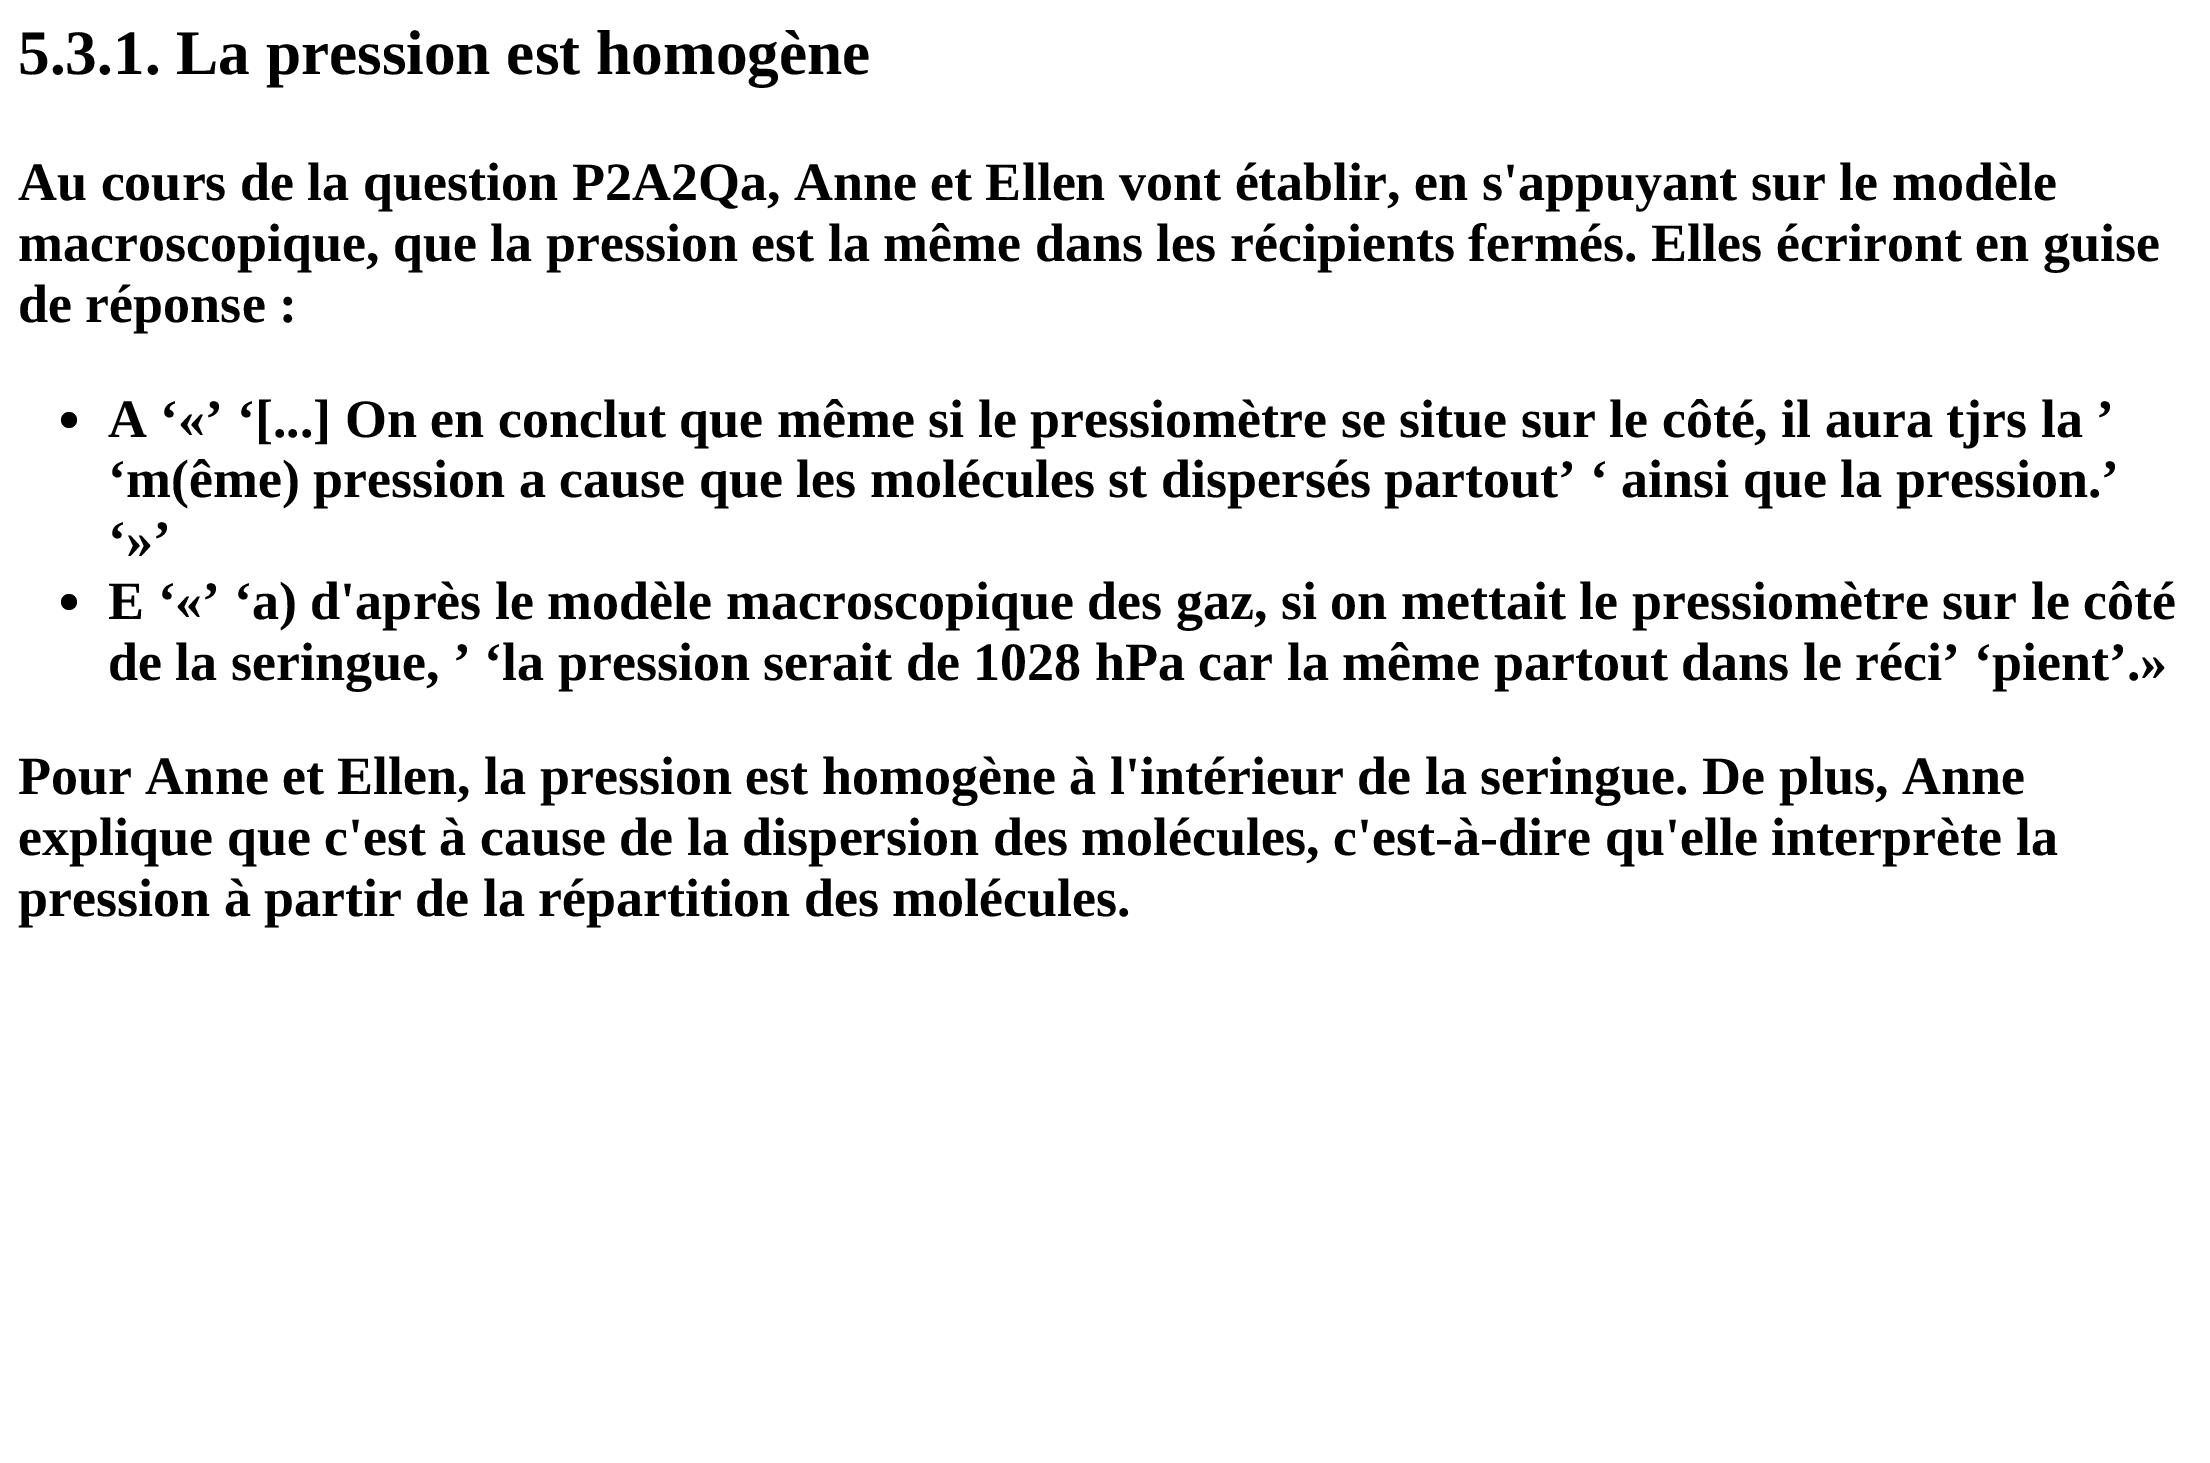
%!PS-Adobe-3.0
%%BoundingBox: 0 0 2210 1463
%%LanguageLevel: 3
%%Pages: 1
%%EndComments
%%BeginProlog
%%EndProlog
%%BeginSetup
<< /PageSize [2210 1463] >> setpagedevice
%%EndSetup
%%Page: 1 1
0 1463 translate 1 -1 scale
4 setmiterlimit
1 setgray
0 0 2210 1463 rectfill
0 setgray
newpath 69 420 8 0 360 arc closepath fill
newpath 69 602 8 0 360 arc closepath fill
/LiberationSerif-Bold [63.25 0 0 -63.25 0 0] selectfont
18 74 moveto (5.3.1. La pression est homogène) show
/LiberationSerif-Bold [54 0 0 -54 0 0] selectfont
18 200 moveto (Au cours de la question P2A2Qa, Anne et Ellen vont établir, en s'appuyant sur le modèle) show
18 261 moveto (macroscopique, que la pression est la même dans les récipients fermés. Elles écriront en guise) show
18 322 moveto (de réponse :) show
108 437 moveto (A ‘«’ ‘[...] On en conclut que même si le pressiomètre se situe sur le côté, il aura tjrs la ’) show
108 497 moveto (‘m\(ême\) pression a cause que les molécules st dispersés partout’ ‘ ainsi que la pression.’) show
108 558 moveto (‘»’) show
108 619 moveto (E ‘«’ ‘a\) d'après le modèle macroscopique des gaz, si on mettait le pressiomètre sur le côté) show
108 680 moveto (de la seringue, ’ ‘la pression serait de 1028 hPa car la même partout dans le réci’ ‘pient’.») show
18 794 moveto (Pour Anne et Ellen, la pression est homogène à l'intérieur de la seringue. De plus, Anne) show
18 855 moveto (explique que c'est à cause de la dispersion des molécules, c'est-à-dire qu'elle interprète la) show
18 916 moveto (pression à partir de la répartition des molécules.) show
showpage
%%EOF
